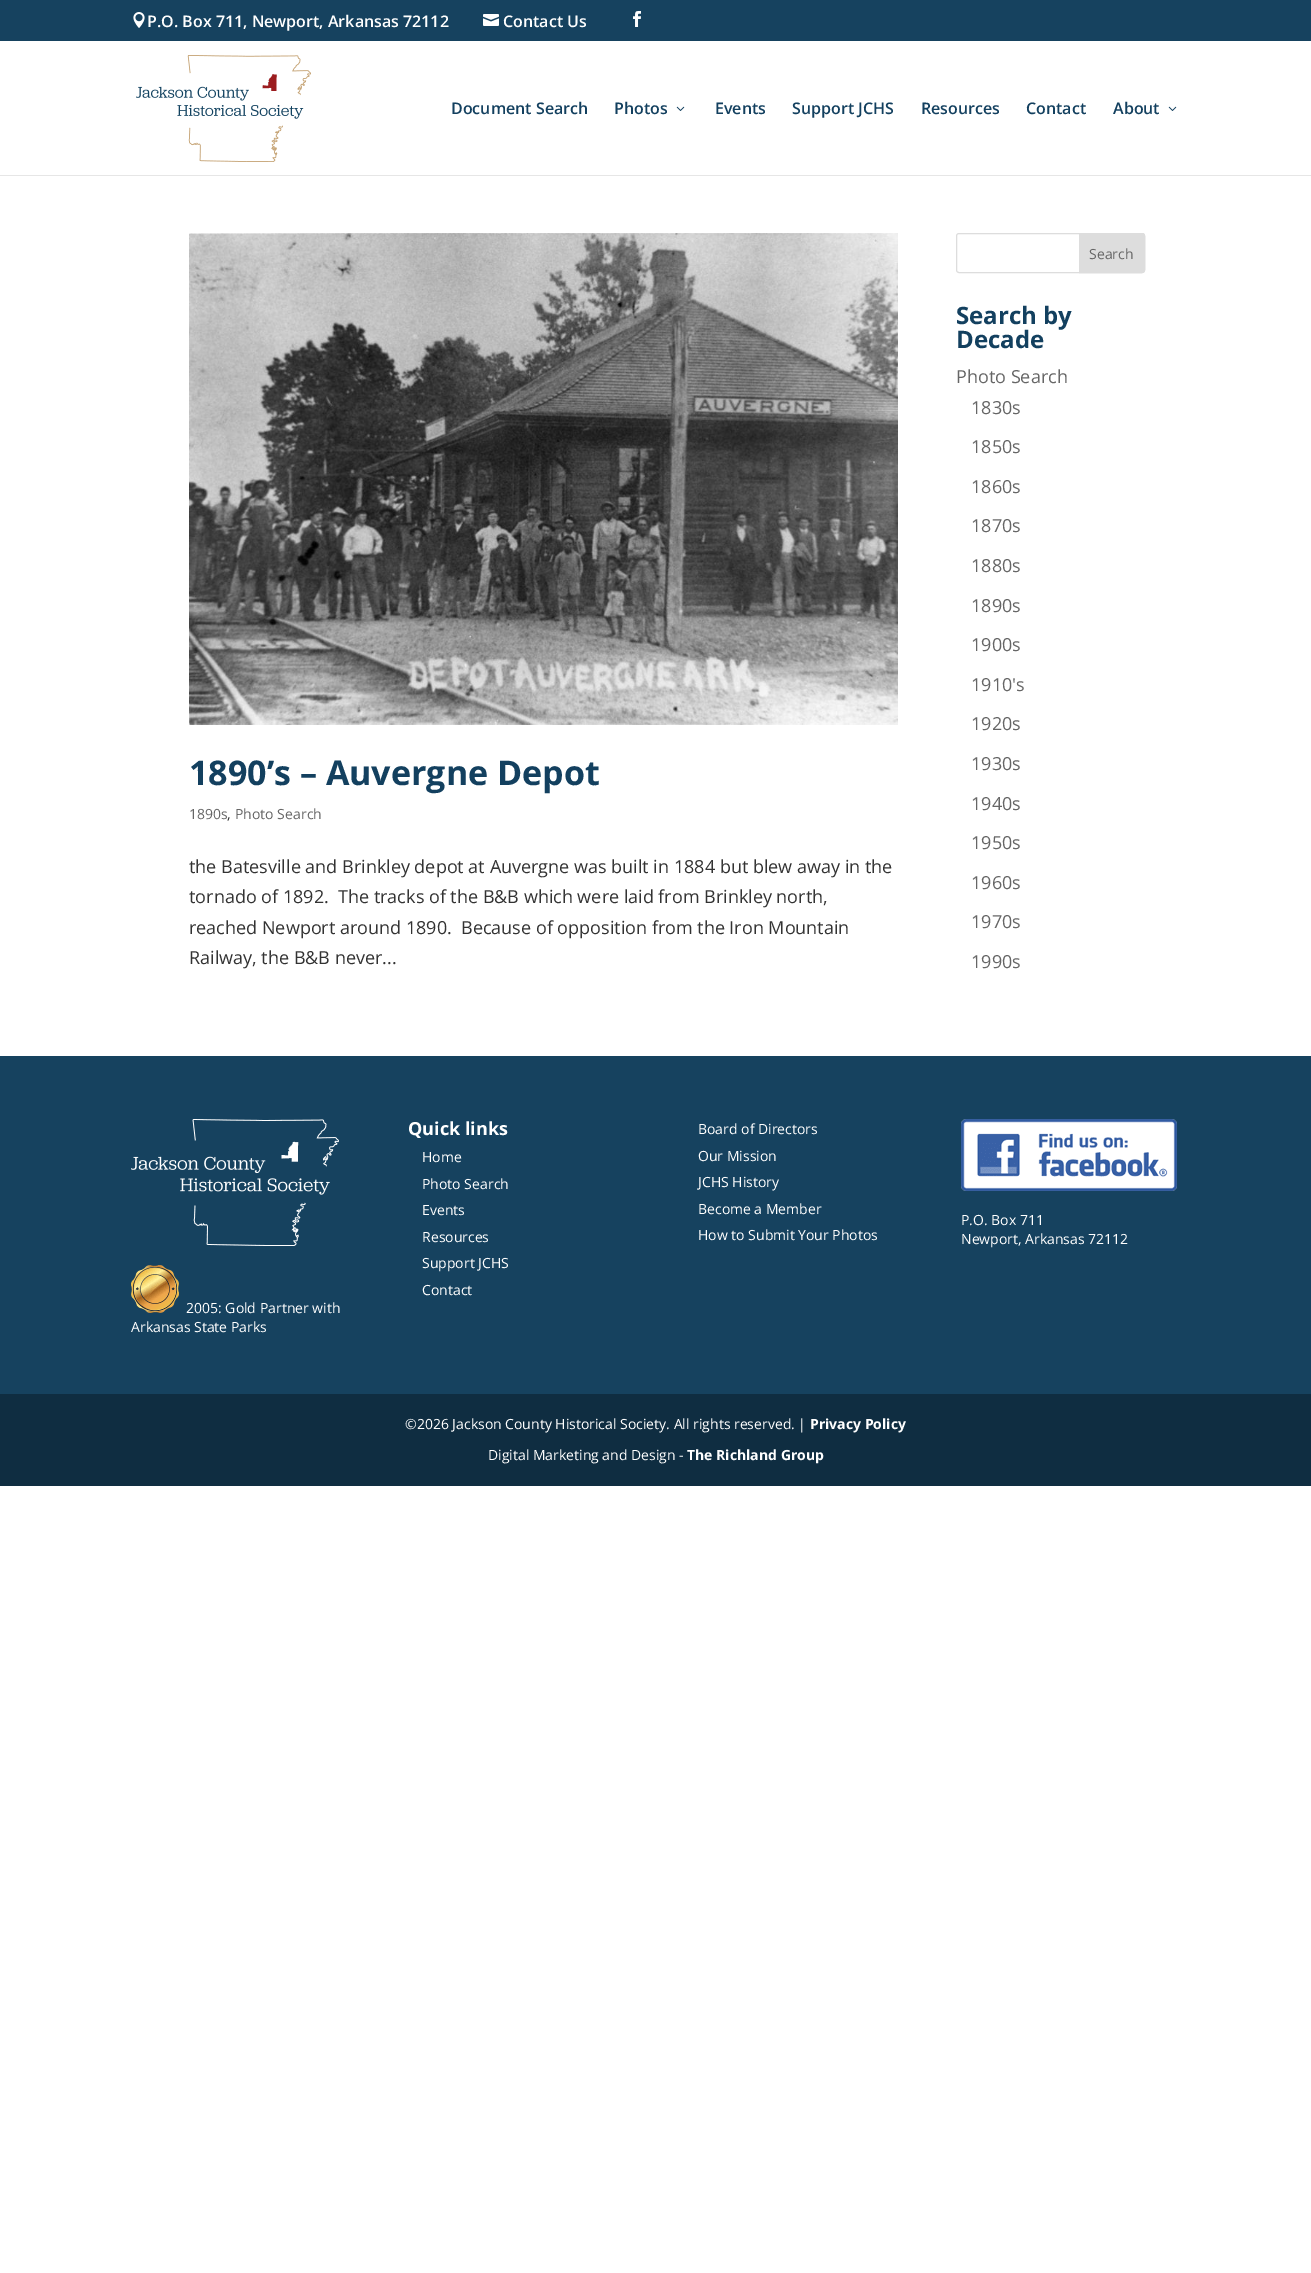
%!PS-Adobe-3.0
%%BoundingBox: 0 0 1311 2273
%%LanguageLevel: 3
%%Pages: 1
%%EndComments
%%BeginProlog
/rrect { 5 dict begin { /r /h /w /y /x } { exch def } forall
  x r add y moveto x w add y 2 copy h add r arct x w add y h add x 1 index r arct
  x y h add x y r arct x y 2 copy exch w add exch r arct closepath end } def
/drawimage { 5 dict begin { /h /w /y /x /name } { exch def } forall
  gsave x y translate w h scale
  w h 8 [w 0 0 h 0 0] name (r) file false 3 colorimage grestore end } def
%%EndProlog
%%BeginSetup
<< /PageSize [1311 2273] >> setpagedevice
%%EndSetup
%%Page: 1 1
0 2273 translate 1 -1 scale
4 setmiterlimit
1 setgray
0 0 1311 2273 rectfill
0.086 0.259 0.373 setrgbcolor
0 0 1311 41 rectfill
(images/1.raw) 133 12 12 16 drawimage
(images/2.raw) 483 14 16 12 drawimage
(images/3.raw) 633 11 8 16 drawimage
0.902 setgray
0 175 1311 1 rectfill
(images/4.raw) 136 55 175 107 drawimage
(images/5.raw) 676 106 9 5 drawimage
(images/5.raw) 1168 106 9 5 drawimage
(images/6.raw) 189 233 709 492 drawimage
0.867 setgray
956.5 233.5 188 39 2.5 rrect stroke
newpath 1079.5 233.5 moveto 1142 233.5 lineto 1143.5 233.5 1144.5 234.5 1144.5 236 curveto 1144.5 270 lineto 1144.5 271.5 1143.5 272.5 1142 272.5 curveto 1079.5 272.5 lineto closepath gsave fill grestore
stroke
0.086 0.259 0.373 setrgbcolor
0 1056 1311 338 rectfill
(images/7.raw) 961 1119 216 72 drawimage
(images/8.raw) 131 1119 208 127 drawimage
(images/9.raw) 131 1265 48 48 drawimage
0.059 0.176 0.255 setrgbcolor
0 1394 1311 92 rectfill
/OpenSans-SemiBold [16 0 0 -16 0 0] selectfont
1 setgray
147 27 moveto (P.O. Box 711, Newport, Arkansas 72112) show
503 27 moveto (Contact Us) show
0.075 0.251 0.373 setrgbcolor
451 114 moveto (Document Search) show
614 114 moveto (Photos) show
715 114 moveto (Events) show
792 114 moveto (Support JCHS) show
921 114 moveto (Resources) show
1026 114 moveto (Contact) show
1113 114 moveto (About) show
/OpenSans-Bold [34 0 0 -34 0 0] selectfont
189 785 moveto (1890’s – Auvergne Depot) show
/OpenSans-Regular [14 0 0 -14 0 0] selectfont
0.4 setgray
189 819 moveto (1890s) show
0.2 setgray
227 819 moveto (,) show
0.4 setgray
235 819 moveto (Photo Search) show
/OpenSans-Regular [18 0 0 -18 0 0] selectfont
0.2 setgray
189 873 moveto (the Batesville and Brinkley depot at Auvergne was built in 1884 but blew away in the) show
189 903 moveto (tornado of 1892.  The tracks of the B&B which were laid from Brinkley north,) show
189 934 moveto (reached Newport around 1890.  Because of opposition from the Iron Mountain) show
189 964 moveto (Railway, the B&B never...) show
/OpenSans-Regular [14 0 0 -14 0 0] selectfont
0.4 setgray
1089 259 moveto (Search) show
/OpenSans-Bold [24 0 0 -24 0 0] selectfont
0.075 0.251 0.373 setrgbcolor
956 324 moveto (Search by) show
956 348 moveto (Decade) show
/OpenSans-Regular [18 0 0 -18 0 0] selectfont
0.4 setgray
956 383 moveto (Photo Search) show
971 414 moveto (1830s) show
971 453 moveto (1850s) show
971 493 moveto (1860s) show
971 532 moveto (1870s) show
971 572 moveto (1880s) show
971 612 moveto (1890s) show
971 651 moveto (1900s) show
971 691 moveto (1910's) show
971 730 moveto (1920s) show
971 770 moveto (1930s) show
971 810 moveto (1940s) show
971 849 moveto (1950s) show
971 889 moveto (1960s) show
971 928 moveto (1970s) show
971 968 moveto (1990s) show
/OpenSans-Bold [18 0 0 -18 0 0] selectfont
1 setgray
408 1135 moveto (Quick links) show
/OpenSans-Regular [14 0 0 -14 0 0] selectfont
422 1162 moveto (Home) show
422 1189 moveto (Photo Search) show
422 1215 moveto (Events) show
422 1242 moveto (Resources) show
422 1268 moveto (Support JCHS) show
422 1295 moveto (Contact) show
698 1134 moveto (Board of Directors) show
698 1161 moveto (Our Mission) show
698 1187 moveto (JCHS History) show
698 1214 moveto (Become a Member) show
698 1240 moveto (How to Submit Your Photos) show
961 1225 moveto (P.O. Box 711) show
961 1244 moveto (Newport, Arkansas 72112) show
186 1313 moveto (2005: Gold Partner with) show
131 1332 moveto (Arkansas State Parks) show
405 1429 moveto (©2026 Jackson County Historical Society. All rights reserved. |) show
/OpenSans-Bold [14 0 0 -14 0 0] selectfont
810 1429 moveto (Privacy Policy) show
/OpenSans-Regular [14 0 0 -14 0 0] selectfont
488 1460 moveto (Digital Marketing and Design -) show
/OpenSans-Bold [14 0 0 -14 0 0] selectfont
687 1460 moveto (The Richland Group) show
showpage
%%EOF
